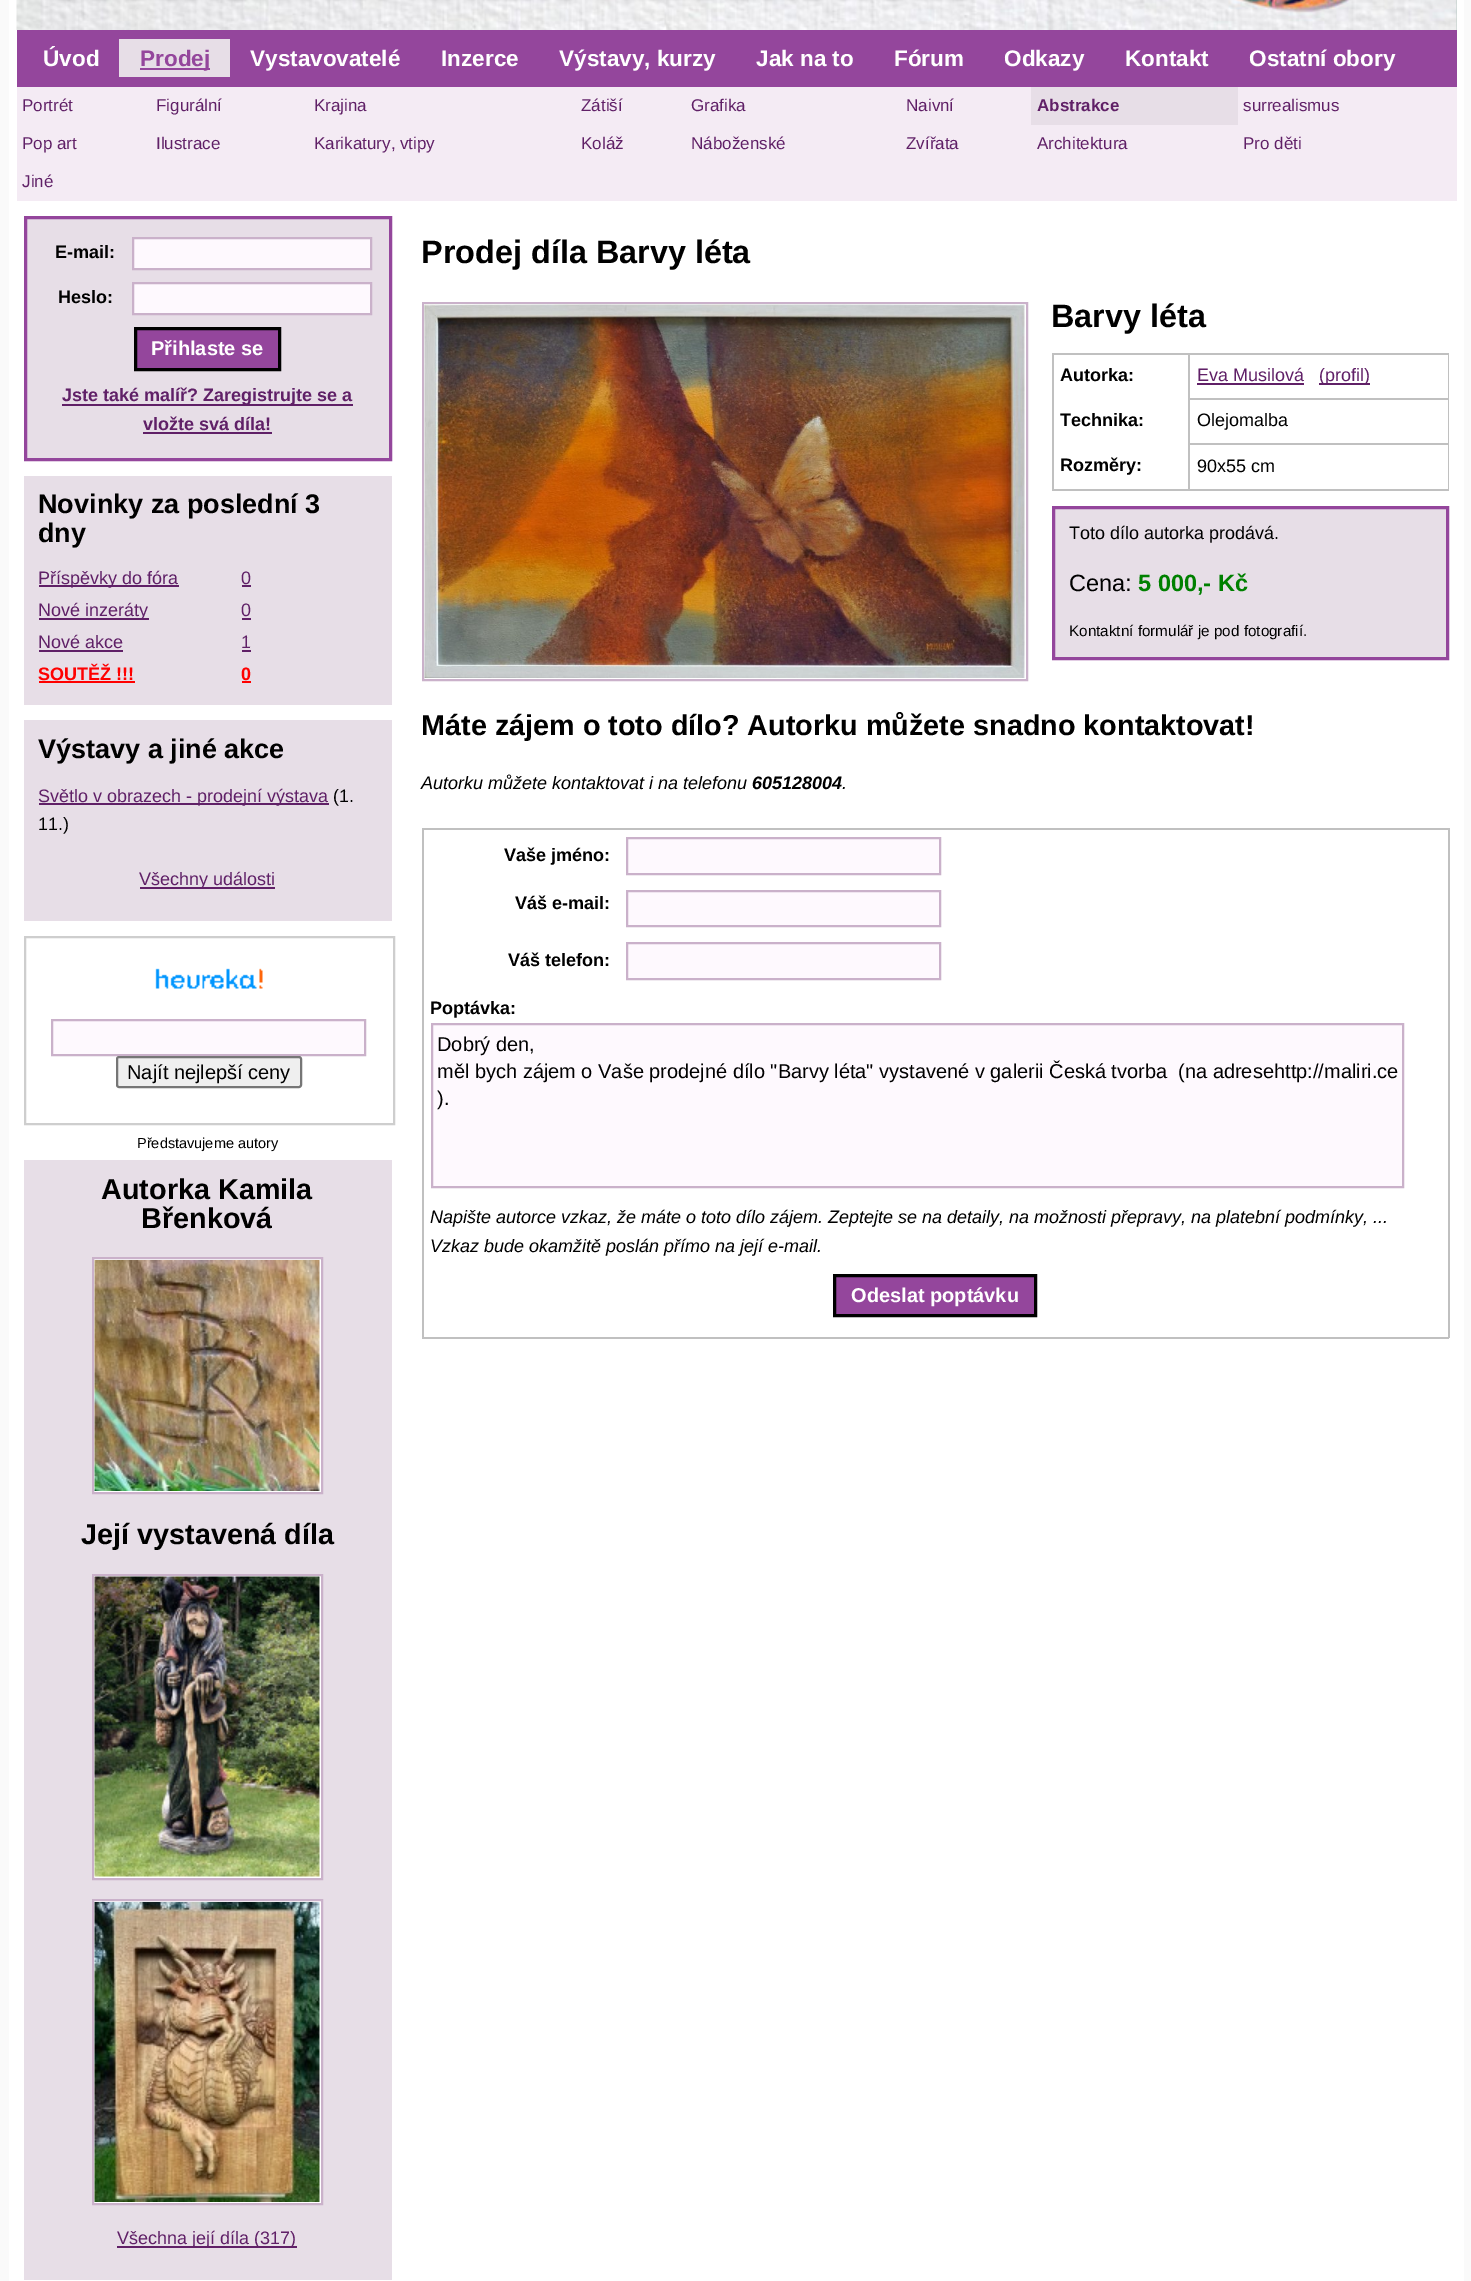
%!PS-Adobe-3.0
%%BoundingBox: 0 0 1471 2281
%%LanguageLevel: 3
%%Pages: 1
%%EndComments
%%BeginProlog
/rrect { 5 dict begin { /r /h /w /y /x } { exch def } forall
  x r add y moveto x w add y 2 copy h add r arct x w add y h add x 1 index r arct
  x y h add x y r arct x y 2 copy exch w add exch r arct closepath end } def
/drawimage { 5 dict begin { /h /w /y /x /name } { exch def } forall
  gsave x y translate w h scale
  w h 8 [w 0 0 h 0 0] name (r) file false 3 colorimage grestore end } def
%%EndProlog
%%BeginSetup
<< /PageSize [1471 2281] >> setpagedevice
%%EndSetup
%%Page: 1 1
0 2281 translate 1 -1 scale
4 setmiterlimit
0.98 setgray
0 0 1471 2281 rectfill
1 setgray
9 0 1455 2281 rectfill
0.733 0.792 0.773 setrgbcolor
1456 0 1 30 rectfill
(images/1.raw) 16 0 1441 30 drawimage
0.58 0.275 0.612 setrgbcolor
17 30 1440 57 rectfill
0.906 0.871 0.906 setrgbcolor
119 39 111 38 rectfill
0.58 0.275 0.612 setrgbcolor
140 68 70 2 rectfill
0.957 0.922 0.957 setrgbcolor
17 87 1440 114 rectfill
0.906 0.871 0.906 setrgbcolor
1031 87 207 38 rectfill
newpath 25.5 217.5 moveto 390.5 217.5 lineto 390.5 459.5 lineto 25.5 459.5 lineto closepath gsave fill grestore
0.58 0.275 0.612 setrgbcolor
3 setlinewidth
stroke
0.996 0.976 0.996 setrgbcolor
newpath 133 238 moveto 371 238 lineto 371 269 lineto 133 269 lineto closepath gsave fill grestore
0.792 0.694 0.792 setrgbcolor
2 setlinewidth
stroke
0.996 0.976 0.996 setrgbcolor
newpath 133 283 moveto 371 283 lineto 371 314 lineto 133 314 lineto closepath gsave fill grestore
0.792 0.694 0.792 setrgbcolor
stroke
0.58 0.275 0.612 setrgbcolor
newpath 135.5 328.5 moveto 279.5 328.5 lineto 279.5 369.5 lineto 135.5 369.5 lineto closepath gsave fill grestore
0 setgray
3 setlinewidth
stroke
0.376 0.125 0.404 setrgbcolor
62 404 291 2 rectfill
143 432 129 2 rectfill
0.906 0.871 0.906 setrgbcolor
24 476 368 229 rectfill
0.376 0.125 0.404 setrgbcolor
39 585 140 2 rectfill
242 585 9 2 rectfill
39 618 110 2 rectfill
242 618 9 2 rectfill
39 650 84 2 rectfill
242 650 9 2 rectfill
1 0 0 setrgbcolor
39 681 96 2 rectfill
242 681 9 2 rectfill
0.906 0.871 0.906 setrgbcolor
24 720 368 201 rectfill
0.376 0.125 0.404 setrgbcolor
39 803 290 2 rectfill
140 887 135 2 rectfill
0.808 setgray
2 setlinewidth
25 937 369 187 rectstroke
(images/2.raw) 155 968 108 21 drawimage
0.996 0.976 0.996 setrgbcolor
newpath 52 1020 moveto 365 1020 lineto 365 1055 lineto 52 1055 lineto closepath gsave fill grestore
0.792 0.694 0.792 setrgbcolor
stroke
0.937 setgray
117 1057 184 30 2 rrect gsave fill grestore
0.463 setgray
stroke
0.906 0.871 0.906 setrgbcolor
24 1160 368 1120 rectfill
1 setgray
newpath 93 1258 moveto 322 1258 lineto 322 1493 lineto 93 1493 lineto closepath gsave fill grestore
0.792 0.694 0.792 setrgbcolor
stroke
(images/3.raw) 94 1260 226 231 drawimage
1 setgray
newpath 93 1575 moveto 322 1575 lineto 322 1879 lineto 93 1879 lineto closepath gsave fill grestore
0.792 0.694 0.792 setrgbcolor
stroke
(images/4.raw) 94 1576 226 301 drawimage
1 setgray
newpath 93 1900 moveto 322 1900 lineto 322 2204 lineto 93 2204 lineto closepath gsave fill grestore
0.792 0.694 0.792 setrgbcolor
stroke
(images/5.raw) 94 1902 226 300 drawimage
0.376 0.125 0.404 setrgbcolor
117 2246 180 2 rectfill
0.792 0.694 0.792 setrgbcolor
423 303 604 377 rectstroke
(images/6.raw) 424 304 601 374 drawimage
0.753 setgray
1052 353 397 2 rectfill
1448 353 1 138 rectfill
1052 489 397 2 rectfill
1052 353 2 138 rectfill
0.376 0.125 0.404 setrgbcolor
1197 383 107 2 rectfill
1319 383 51 2 rectfill
0.753 setgray
1188 398 261 2 rectfill
1188 443 261 2 rectfill
1188 443 2 48 rectfill
1188 353 2 91 rectfill
0.906 0.871 0.906 setrgbcolor
newpath 1053.5 507.5 moveto 1447.5 507.5 lineto 1447.5 658.5 lineto 1053.5 658.5 lineto closepath gsave fill grestore
0.58 0.275 0.612 setrgbcolor
3 setlinewidth
stroke
0.753 setgray
422 828 1027 2 rectfill
1448 828 2 510 rectfill
422 1337 1027 2 rectfill
422 828 2 510 rectfill
0.996 0.976 0.996 setrgbcolor
newpath 627 838 moveto 940 838 lineto 940 874 lineto 627 874 lineto closepath gsave fill grestore
0.792 0.694 0.792 setrgbcolor
2 setlinewidth
stroke
0.996 0.976 0.996 setrgbcolor
newpath 627 891 moveto 940 891 lineto 940 926 lineto 627 926 lineto closepath gsave fill grestore
0.792 0.694 0.792 setrgbcolor
stroke
0.996 0.976 0.996 setrgbcolor
newpath 627 943 moveto 940 943 lineto 940 979 lineto 627 979 lineto closepath gsave fill grestore
0.792 0.694 0.792 setrgbcolor
stroke
0.996 0.976 0.996 setrgbcolor
newpath 432 1024 moveto 1403 1024 lineto 1403 1187 lineto 432 1187 lineto closepath gsave fill grestore
0.792 0.694 0.792 setrgbcolor
stroke
0.58 0.275 0.612 setrgbcolor
newpath 834.5 1275.5 moveto 1035.5 1275.5 lineto 1035.5 1315.5 lineto 834.5 1315.5 lineto closepath gsave fill grestore
0 setgray
3 setlinewidth
stroke
/LiberationSans-Bold [22.5 0 0 -22.5 0 0] selectfont
1 setgray
43 66 moveto (Úvod) show
0.58 0.275 0.612 setrgbcolor
140 66 moveto (Prodej) show
1 setgray
250 66 moveto (Vystavovatelé) show
441 66 moveto (Inzerce) show
559 66 moveto (Výstavy, kurzy) show
756 66 moveto (Jak na to) show
894 66 moveto (Fórum) show
1004 66 moveto (Odkazy) show
1125 66 moveto (Kontakt) show
1249 66 moveto (Ostatní obory) show
/LiberationSans-Regular [17 0 0 -17 0 0] selectfont
0.376 0.125 0.404 setrgbcolor
22 111 moveto (Portrét) show
156 111 moveto (Figurální) show
314 111 moveto (Krajina) show
581 111 moveto (Zátiší) show
691 111 moveto (Grafika) show
906 111 moveto (Naivní) show
/LiberationSans-Bold [17 0 0 -17 0 0] selectfont
1037 111 moveto (Abstrakce) show
/LiberationSans-Regular [17 0 0 -17 0 0] selectfont
1243 111 moveto (surrealismus) show
22 149 moveto (Pop art) show
156 149 moveto (Ilustrace) show
314 149 moveto (Karikatury, vtipy) show
581 149 moveto (Koláž) show
691 149 moveto (Náboženské) show
906 149 moveto (Zvířata) show
1037 149 moveto (Architektura) show
1243 149 moveto (Pro děti) show
22 187 moveto (Jiné) show
/LiberationSans-Bold [18 0 0 -18 0 0] selectfont
0 setgray
55 258 moveto (E-mail:) show
58 303 moveto (Heslo:) show
/LiberationSans-Bold [20 0 0 -20 0 0] selectfont
1 setgray
151 355 moveto (Přihlaste se) show
/LiberationSans-Bold [18 0 0 -18 0 0] selectfont
0.376 0.125 0.404 setrgbcolor
62 401 moveto (Jste také malíř? Zaregistrujte se a) show
143 430 moveto (vložte svá díla!) show
/LiberationSans-Bold [27 0 0 -27 0 0] selectfont
0 setgray
38 513 moveto (Novinky za poslední 3) show
38 542 moveto (dny) show
/LiberationSans-Regular [18 0 0 -18 0 0] selectfont
0.376 0.125 0.404 setrgbcolor
38 584 moveto (Příspěvky do fóra) show
241 584 moveto (0) show
38 616 moveto (Nové inzeráty) show
241 616 moveto (0) show
38 648 moveto (Nové akce) show
241 648 moveto (1) show
/LiberationSans-Bold [18 0 0 -18 0 0] selectfont
1 0 0 setrgbcolor
38 680 moveto (SOUTĚŽ !!!) show
241 680 moveto (0) show
/LiberationSans-Bold [27 0 0 -27 0 0] selectfont
0 setgray
38 758 moveto (Výstavy a jiné akce) show
/LiberationSans-Regular [18 0 0 -18 0 0] selectfont
0.376 0.125 0.404 setrgbcolor
38 802 moveto (Světlo v obrazech - prodejní výstava) show
0 setgray
333 802 moveto (\(1.) show
38 830 moveto (11.\)) show
0.376 0.125 0.404 setrgbcolor
139 885 moveto (Všechny události) show
/LiberationSans-Regular [20 0 0 -20 0 0] selectfont
0 setgray
127 1079 moveto (Najít nejlepší ceny) show
/LiberationSans-Regular [14.5 0 0 -14.5 0 0] selectfont
137 1148 moveto (Představujeme autory) show
/LiberationSans-Bold [28.8 0 0 -28.8 0 0] selectfont
101 1199 moveto (Autorka Kamila) show
141 1228 moveto (Břenková) show
81 1544 moveto (Její vystavená díla) show
/LiberationSans-Regular [18 0 0 -18 0 0] selectfont
0.376 0.125 0.404 setrgbcolor
117 2244 moveto (Všechna její díla \(317\)) show
/LiberationSans-Bold [32.4 0 0 -32.4 0 0] selectfont
0 setgray
421 263 moveto (Prodej díla Barvy léta) show
1051 327 moveto (Barvy léta) show
/LiberationSans-Bold [18 0 0 -18 0 0] selectfont
1060 381 moveto (Autorka:) show
/LiberationSans-Regular [18 0 0 -18 0 0] selectfont
0.376 0.125 0.404 setrgbcolor
1197 381 moveto (Eva Musilová) show
1319 381 moveto (\(profil\)) show
/LiberationSans-Bold [18 0 0 -18 0 0] selectfont
0 setgray
1060 426 moveto (Technika:) show
/LiberationSans-Regular [18 0 0 -18 0 0] selectfont
1197 426 moveto (Olejomalba) show
/LiberationSans-Bold [18 0 0 -18 0 0] selectfont
1060 471 moveto (Rozměry:) show
/LiberationSans-Regular [18 0 0 -18 0 0] selectfont
1197 472 moveto (90x55 cm) show
1069 539 moveto (Toto dílo autorka prodává.) show
/LiberationSans-Regular [23.5 0 0 -23.5 0 0] selectfont
1069 591 moveto (Cena:) show
/LiberationSans-Bold [23.5 0 0 -23.5 0 0] selectfont
0 0.502 0 setrgbcolor
1138 591 moveto (5 000,- Kč) show
/LiberationSans-Regular [15.25 0 0 -15.25 0 0] selectfont
0 setgray
1069 636 moveto (Kontaktní formulář je pod fotografií.) show
/LiberationSans-Bold [28.8 0 0 -28.8 0 0] selectfont
421 735 moveto (Máte zájem o toto dílo? Autorku můžete snadno kontaktovat!) show
/LiberationSans-Italic [18 0 0 -18 0 0] selectfont
421 789 moveto (Autorku můžete kontaktovat i na telefonu) show
/LiberationSans-BoldItalic [18 0 0 -18 0 0] selectfont
752 789 moveto (605128004) show
/LiberationSans-Italic [18 0 0 -18 0 0] selectfont
842 789 moveto (.) show
/LiberationSans-Bold [18 0 0 -18 0 0] selectfont
504 861 moveto (Vaše jméno:) show
515 909 moveto (Váš e-mail:) show
508 966 moveto (Váš telefon:) show
430 1014 moveto (Poptávka:) show
/LiberationSans-Regular [20 0 0 -20 0 0] selectfont
437 1051 moveto (Dobrý den,) show
437 1078 moveto (měl bych zájem o Vaše prodejné dílo "Barvy léta" vystavené v galerii Česká tvorba  \(na adrese) show
1274 1078 moveto (http://maliri.ce) show
437 1105 moveto (\).) show
/LiberationSans-Italic [18 0 0 -18 0 0] selectfont
430 1223 moveto (Napište autorce vzkaz, že máte o toto dílo zájem. Zeptejte se na detaily, na možnosti přepravy, na platební podmínky, ...) show
430 1252 moveto (Vzkaz bude okamžitě poslán přímo na její e-mail.) show
/LiberationSans-Bold [20 0 0 -20 0 0] selectfont
1 setgray
851 1302 moveto (Odeslat poptávku) show
showpage
%%EOF
